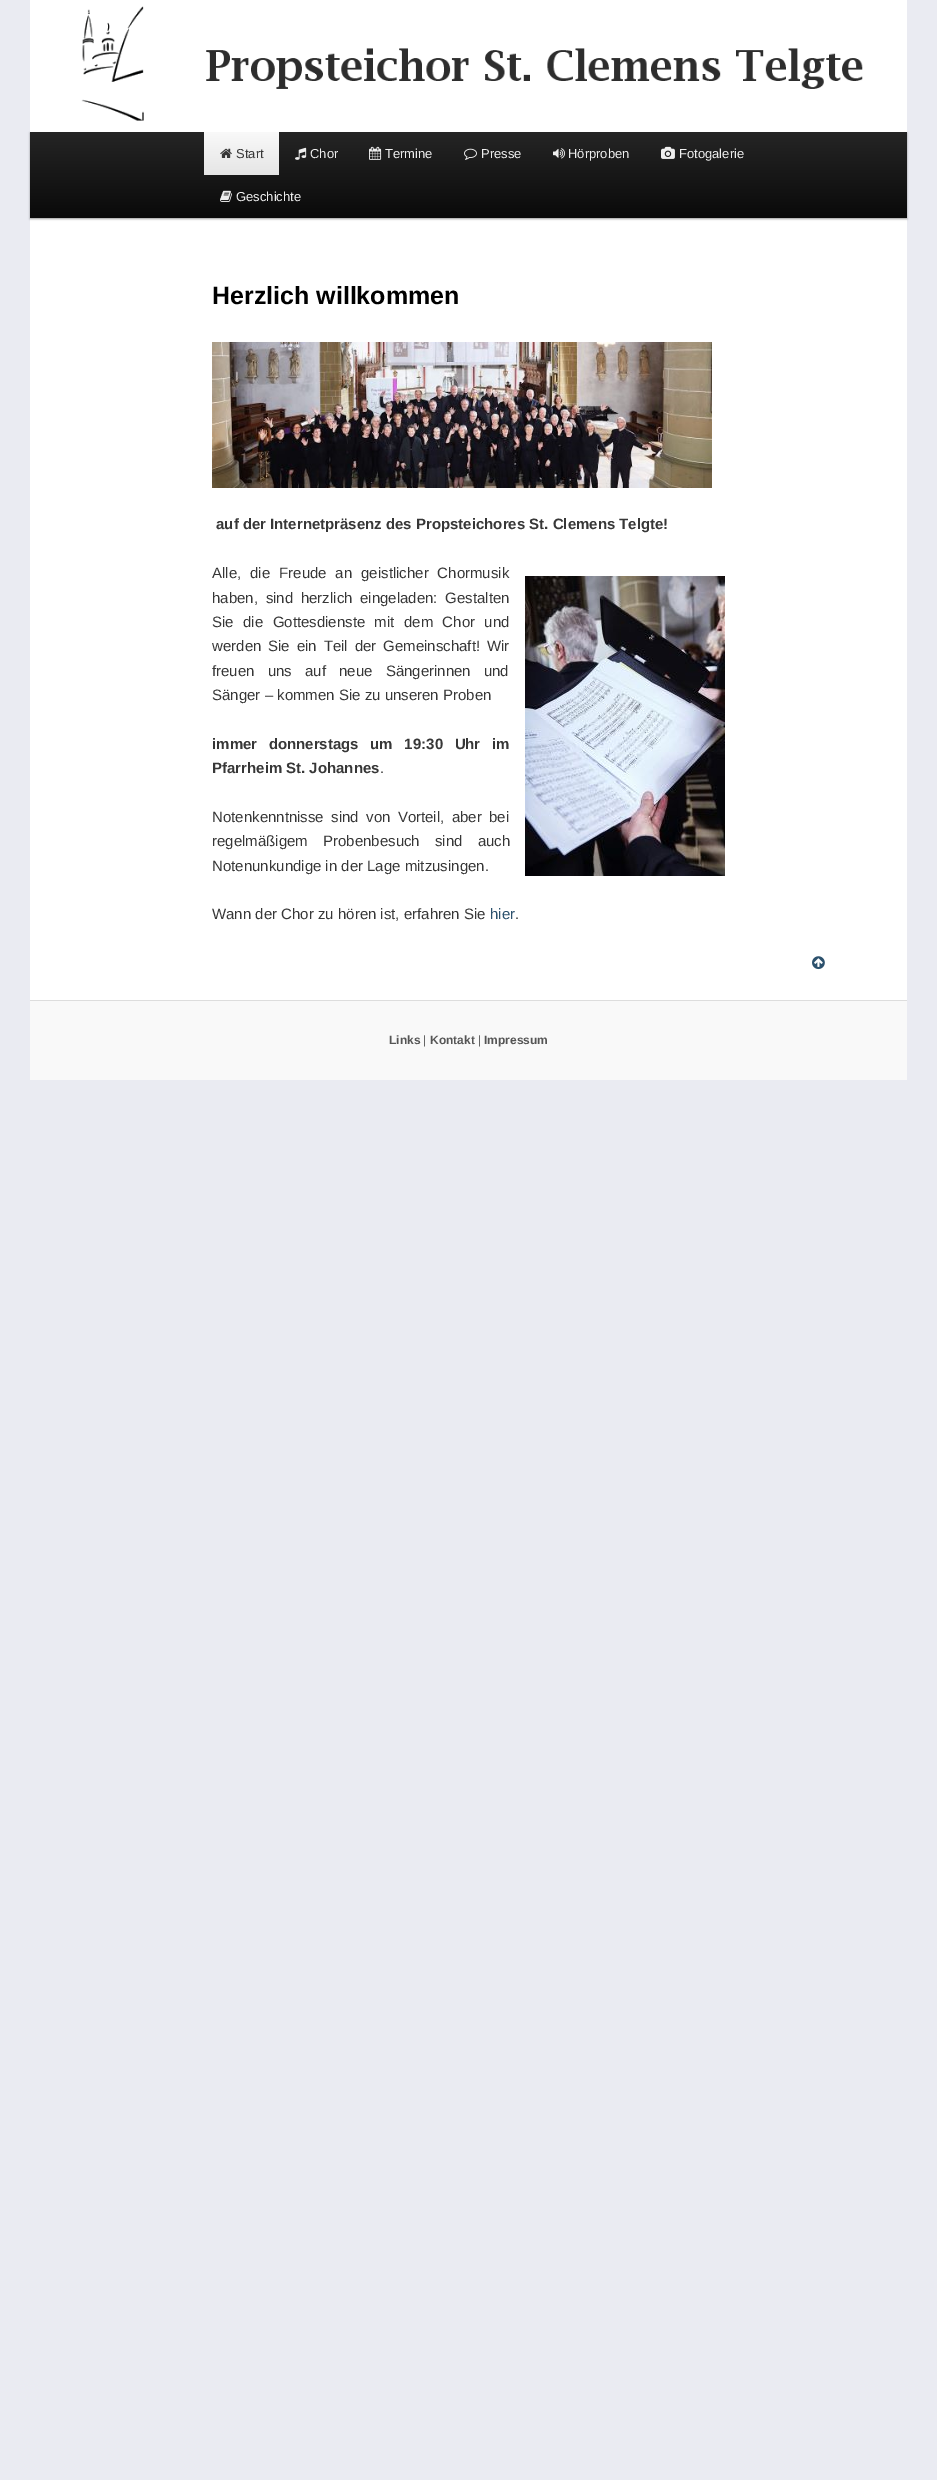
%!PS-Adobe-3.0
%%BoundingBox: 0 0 937 2480
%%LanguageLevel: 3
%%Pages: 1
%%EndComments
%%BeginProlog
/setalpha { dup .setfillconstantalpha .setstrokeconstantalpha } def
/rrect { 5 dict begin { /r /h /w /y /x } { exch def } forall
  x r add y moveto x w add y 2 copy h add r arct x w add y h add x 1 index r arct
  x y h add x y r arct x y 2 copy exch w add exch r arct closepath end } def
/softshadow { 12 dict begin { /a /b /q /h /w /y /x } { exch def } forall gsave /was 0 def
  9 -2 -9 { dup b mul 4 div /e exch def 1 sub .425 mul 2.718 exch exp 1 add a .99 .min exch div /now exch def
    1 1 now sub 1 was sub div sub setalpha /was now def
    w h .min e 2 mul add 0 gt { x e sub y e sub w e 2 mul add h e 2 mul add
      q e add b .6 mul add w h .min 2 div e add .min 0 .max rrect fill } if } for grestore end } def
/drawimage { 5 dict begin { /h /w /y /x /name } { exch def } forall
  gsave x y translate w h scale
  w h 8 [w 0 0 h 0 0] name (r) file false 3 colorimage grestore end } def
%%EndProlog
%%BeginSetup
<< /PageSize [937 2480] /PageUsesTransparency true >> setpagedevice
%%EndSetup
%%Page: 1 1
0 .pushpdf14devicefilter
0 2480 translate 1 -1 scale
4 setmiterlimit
0.918 0.922 0.949 setrgbcolor
0 0 937 2480 rectfill
1 setgray
30 0 877 1000 rectfill
0 setgray
30 133 877 86 0 1 0.4 softshadow
(images/1.raw) 30 6 877 126 drawimage
gsave newpath 30 132 moveto 907 132 lineto 907 218 lineto 30 218 lineto closepath clip newpath
<< /ShadingType 2 /ColorSpace /DeviceRGB /Coords [469 132 469 218] /Extend [true true] /Function << /FunctionType 2 /Domain [0 1] /C0 [0.145 0.145 0.145] /C1 [0.039 0.039 0.039] /N 1 >> >> shfill grestore
gsave newpath 204 132 moveto 279 132 lineto 279 175 lineto 204 175 lineto closepath clip newpath
<< /ShadingType 2 /ColorSpace /DeviceRGB /Coords [242 132 242 175] /Extend [true true] /Function << /FunctionType 2 /Domain [0 1] /C0 [0.976 0.976 0.976] /C1 [0.898 0.898 0.898] /N 1 >> >> shfill grestore
(images/2.raw) 220 148 12 10 drawimage
(images/3.raw) 295 147 12 13 drawimage
(images/4.raw) 369 146 13 14 drawimage
(images/5.raw) 464 148 13 12 drawimage
(images/6.raw) 553 148 13 11 drawimage
(images/7.raw) 661 146 14 13 drawimage
(images/8.raw) 220 190 12 12 drawimage
(images/9.raw) 212 342 500 146 drawimage
(images/10.raw) 525 576 200 300 drawimage
(images/11.raw) 812 956 13 14 drawimage
0.976 setgray
30 1001 877 79 rectfill
0.867 setgray
30 1000 877 1 rectfill
/LiberationSans-Regular [13 0 0 -13 0 0] selectfont
0.216 setgray
236 158 moveto (Start) show
0.933 setgray
310 158 moveto (Chor) show
385 158 moveto (Termine) show
481 158 moveto (Presse) show
568 158 moveto (Hörproben) show
679 158 moveto (Fotogalerie) show
236 201 moveto (Geschichte) show
/LiberationSans-Bold [25 0 0 -25 0 0] selectfont
0 setgray
212 304 moveto (Herzlich willkommen) show
/LiberationSans-Bold [15 0 0 -15 0 0] selectfont
0.216 setgray
216 529 moveto (auf der Internetpräsenz des Propsteichores St. Clemens Telgte!) show
/LiberationSans-Regular [15 0 0 -15 0 0] selectfont
212 578 moveto 4.75 0 32 (Alle, die Freude an geistlicher Chormusik) widthshow
212 603 moveto 3.5 0 32 (haben, sind herzlich eingeladen: Gestalten) widthshow
212 627 moveto 5.25 0 32 (Sie die Gottesdienste mit dem Chor und) widthshow
212 651 moveto 2.75 0 32 (werden Sie ein Teil der Gemeinschaft! Wir) widthshow
212 676 moveto 9 0 32 (freuen uns auf neue Sängerinnen und) widthshow
212 700 moveto (Sänger – kommen Sie zu unseren Proben) show
/LiberationSans-Bold [15 0 0 -15 0 0] selectfont
212 749 moveto 7.5 0 32 (immer donnerstags um 19:30 Uhr im) widthshow
212 773 moveto (Pfarrheim St. Johannes) show
/LiberationSans-Regular [15 0 0 -15 0 0] selectfont
380 773 moveto (.) show
212 822 moveto 3.25 0 32 (Notenkenntnisse sind von Vorteil, aber bei) widthshow
212 846 moveto 11 0 32 (regelmäßigem Probenbesuch sind auch) widthshow
212 871 moveto (Notenunkundige in der Lage mitzusingen.) show
212 919 moveto (Wann der Chor zu hören ist, erfahren Sie) show
0.173 0.318 0.427 setrgbcolor
490 919 moveto (hier) show
0.216 setgray
515 919 moveto (.) show
/LiberationSans-Bold [12 0 0 -12 0 0] selectfont
0.333 setgray
389 1044 moveto (Links) show
/LiberationSans-Regular [12 0 0 -12 0 0] selectfont
0.4 setgray
423 1044 moveto (|) show
/LiberationSans-Bold [12 0 0 -12 0 0] selectfont
0.333 setgray
430 1044 moveto (Kontakt) show
/LiberationSans-Regular [12 0 0 -12 0 0] selectfont
0.4 setgray
478 1044 moveto (|) show
/LiberationSans-Bold [12 0 0 -12 0 0] selectfont
0.333 setgray
484 1044 moveto (Impressum) show
.poppdf14devicefilter showpage
%%EOF
